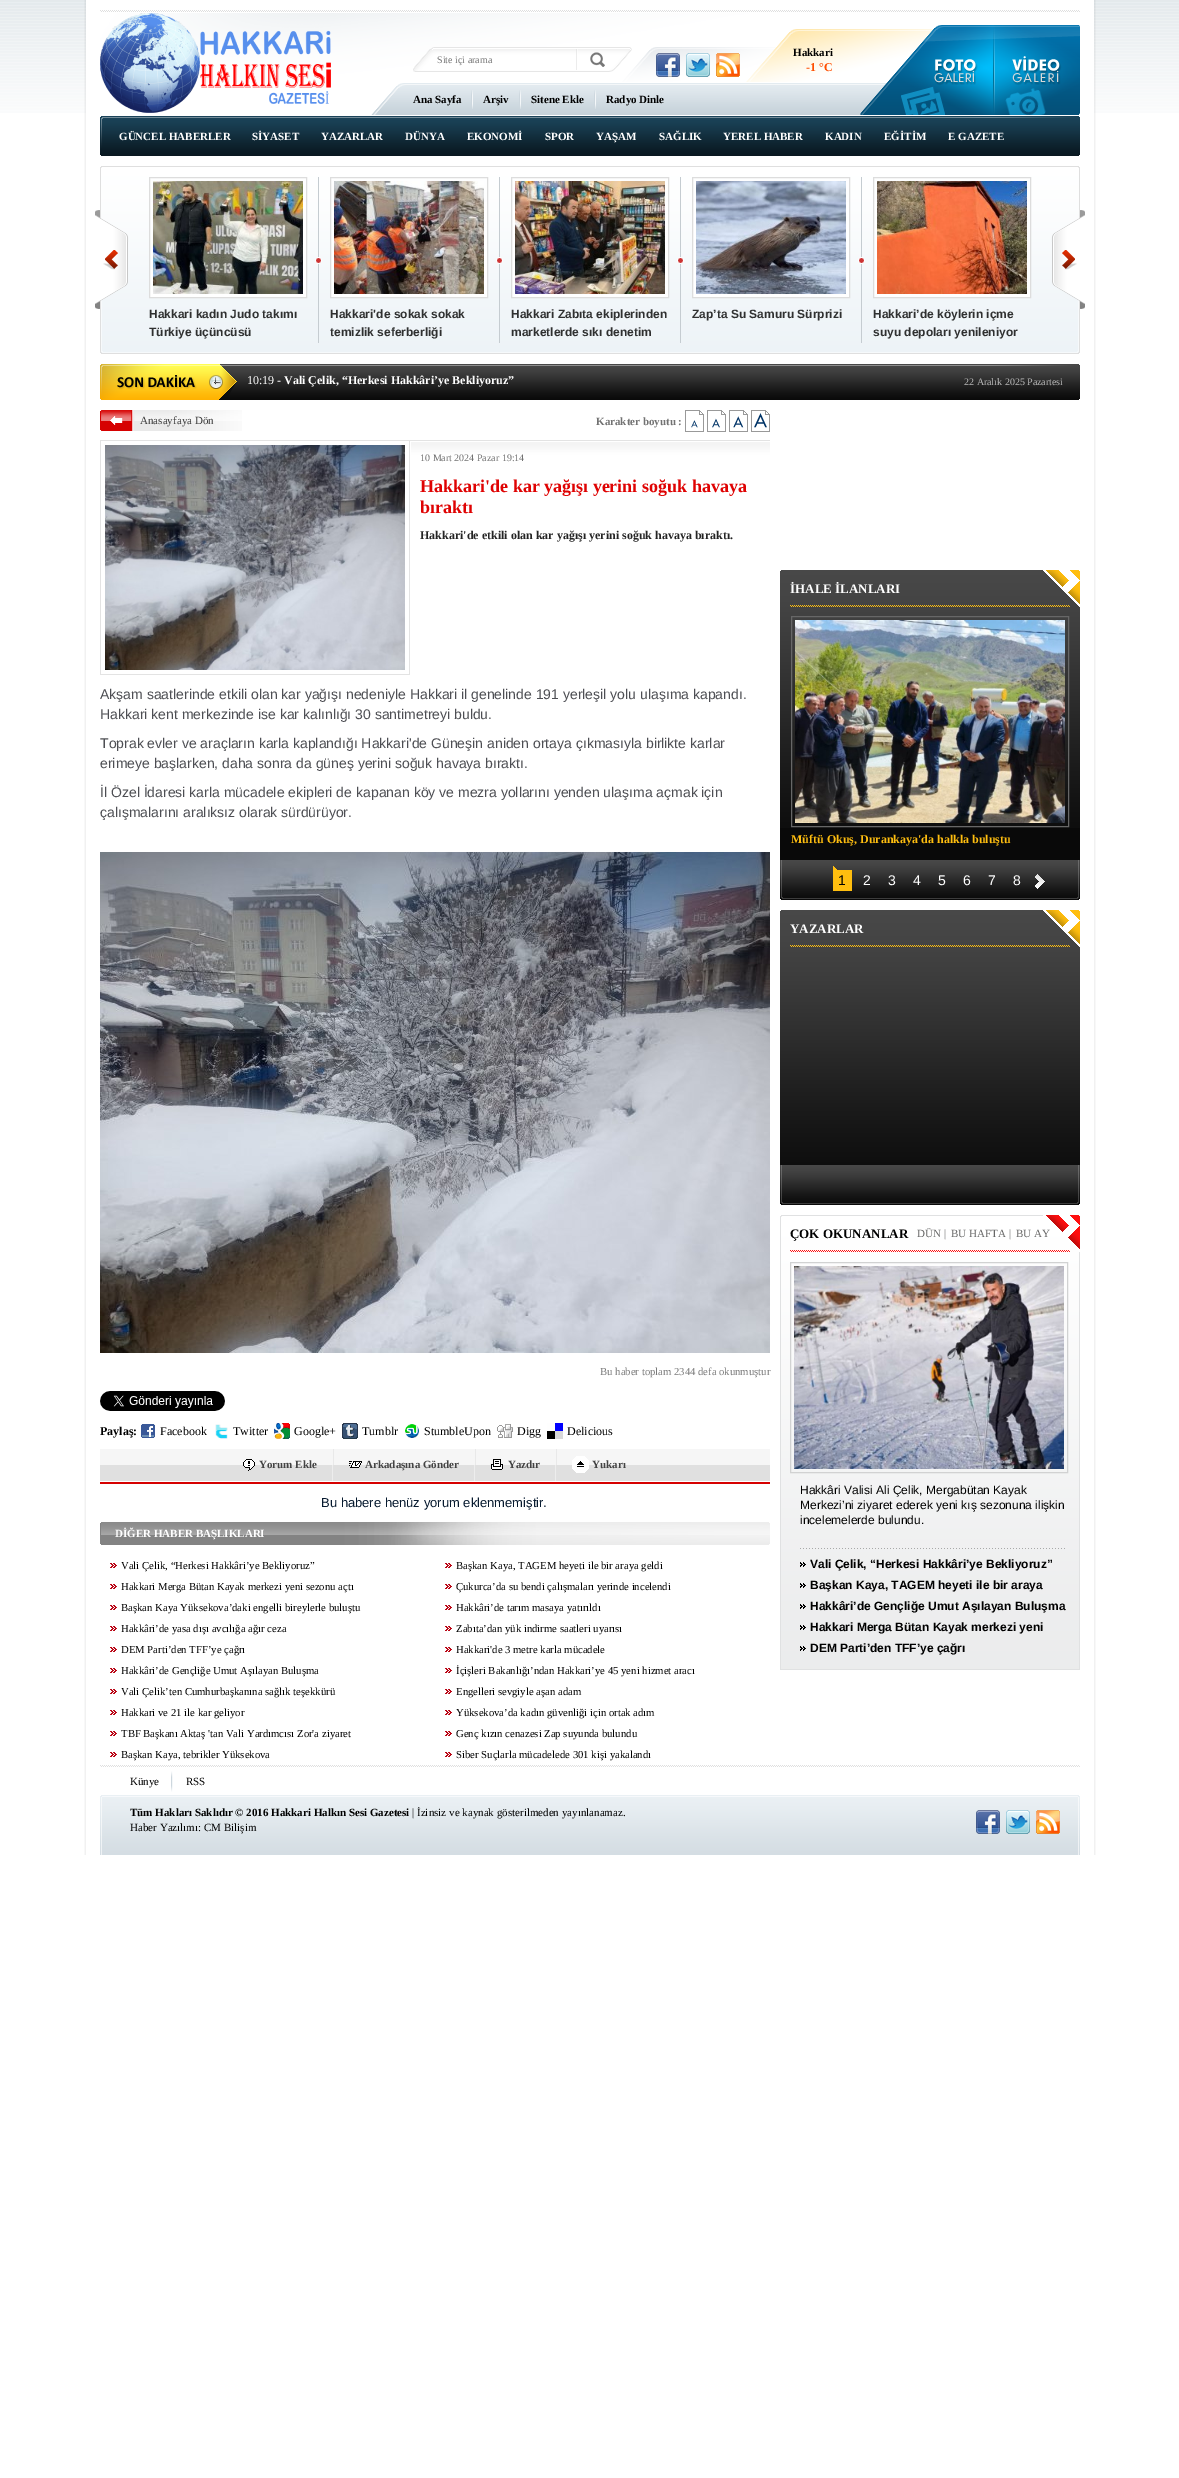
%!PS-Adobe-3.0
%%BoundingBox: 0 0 1179 2478
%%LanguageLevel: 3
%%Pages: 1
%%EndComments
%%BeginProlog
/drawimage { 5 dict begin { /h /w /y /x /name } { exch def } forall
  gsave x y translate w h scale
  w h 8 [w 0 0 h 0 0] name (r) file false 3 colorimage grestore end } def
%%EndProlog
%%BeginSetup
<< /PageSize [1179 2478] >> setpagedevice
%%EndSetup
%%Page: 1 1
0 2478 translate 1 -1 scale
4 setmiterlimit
1 setgray
0 0 1179 2478 rectfill
(images/1.raw) 0 0 1179 113 drawimage
(images/2.raw) 84 0 1012 1855 drawimage
(images/3.raw) 100 10 980 146 drawimage
(images/4.raw) 100 13 231 100 drawimage
(images/5.raw) 656 53 24 24 drawimage
(images/6.raw) 686 53 24 24 drawimage
(images/7.raw) 716 53 24 24 drawimage
(images/8.raw) 471 90 2 19 drawimage
(images/8.raw) 519 90 2 19 drawimage
(images/8.raw) 594 90 2 19 drawimage
(images/9.raw) 95 166 990 188 drawimage
(images/10.raw) 315 177 550 166 drawimage
150 202 156 95 rectfill
0.867 setgray
149.5 177.5 157 120 rectstroke
(images/11.raw) 153 181 150 113 drawimage
1 setgray
331 202 156 95 rectfill
0.867 setgray
330.5 177.5 157 120 rectstroke
(images/12.raw) 334 181 150 113 drawimage
1 setgray
512 202 156 95 rectfill
0.867 setgray
511.5 177.5 157 120 rectstroke
(images/13.raw) 515 181 150 113 drawimage
1 setgray
693 202 156 95 rectfill
0.867 setgray
692.5 177.5 157 120 rectstroke
(images/14.raw) 696 181 150 113 drawimage
1 setgray
874 202 156 95 rectfill
0.867 setgray
873.5 177.5 157 120 rectstroke
(images/15.raw) 877 181 150 113 drawimage
(images/16.raw) 100 364 980 36 drawimage
(images/17.raw) 100 410 142 21 drawimage
(images/18.raw) 685 410 19 22 drawimage
(images/19.raw) 707 410 19 22 drawimage
(images/20.raw) 729 410 19 22 drawimage
(images/21.raw) 751 410 19 22 drawimage
(images/22.raw) 100 440 670 235 drawimage
(images/23.raw) 105 445 300 225 drawimage
(images/24.raw) 100 852 670 501 drawimage
(images/25.raw) 100 1391 125 20 drawimage
(images/26.raw) 141 1424 14 14 drawimage
(images/27.raw) 215 1424 13 15 drawimage
(images/28.raw) 274 1423 16 16 drawimage
(images/29.raw) 342 1423 16 16 drawimage
(images/30.raw) 405 1424 14 14 drawimage
(images/31.raw) 497 1424 16 14 drawimage
(images/32.raw) 547 1423 16 16 drawimage
(images/33.raw) 100 1449 670 35 drawimage
(images/34.raw) 243 1459 12 12 drawimage
(images/35.raw) 332 1449 2 32 drawimage
(images/36.raw) 349 1461 13 7 drawimage
(images/35.raw) 474 1449 2 32 drawimage
(images/37.raw) 491 1459 12 11 drawimage
(images/35.raw) 555 1449 2 32 drawimage
(images/38.raw) 572 1456 17 17 drawimage
(images/39.raw) 100 1522 670 23 drawimage
(images/40.raw) 110 1563 7 5 drawimage
(images/40.raw) 445 1563 7 5 drawimage
(images/40.raw) 110 1584 7 5 drawimage
(images/40.raw) 445 1584 7 5 drawimage
(images/40.raw) 110 1605 7 5 drawimage
(images/40.raw) 445 1605 7 5 drawimage
(images/40.raw) 110 1626 7 5 drawimage
(images/40.raw) 445 1626 7 5 drawimage
(images/40.raw) 110 1647 7 5 drawimage
(images/40.raw) 445 1647 7 5 drawimage
(images/40.raw) 110 1668 7 5 drawimage
(images/40.raw) 445 1668 7 5 drawimage
(images/40.raw) 110 1689 7 5 drawimage
(images/40.raw) 445 1689 7 5 drawimage
(images/40.raw) 110 1710 7 5 drawimage
(images/40.raw) 445 1710 7 5 drawimage
(images/40.raw) 110 1731 7 5 drawimage
(images/40.raw) 445 1731 7 5 drawimage
(images/40.raw) 110 1752 7 5 drawimage
(images/40.raw) 445 1752 7 5 drawimage
(images/41.raw) 780 570 300 37 drawimage
0.035 setgray
780 828 300 32 rectfill
(images/42.raw) 780 607 300 221 drawimage
(images/43.raw) 780 860 300 40 drawimage
0.404 setgray
791.5 616.5 277 210 rectstroke
(images/44.raw) 795 620 270 203 drawimage
(images/45.raw) 833 866 19 25 drawimage
(images/46.raw) 1035 874 10 15 drawimage
(images/41.raw) 780 910 300 37 drawimage
(images/47.raw) 780 947 300 218 drawimage
(images/43.raw) 780 1165 300 40 drawimage
(images/48.raw) 780 1215 300 37 drawimage
(images/49.raw) 780 1252 300 417 drawimage
0.82 0.824 0.824 setrgbcolor
790.5 1262.5 277 210 rectstroke
(images/50.raw) 794 1266 270 203 drawimage
(images/51.raw) 800 1548 265 1 drawimage
(images/52.raw) 800 1562 6 5 drawimage
(images/53.raw) 800 1583 6 5 drawimage
(images/54.raw) 800 1604 6 5 drawimage
(images/55.raw) 800 1625 6 5 drawimage
(images/56.raw) 800 1646 6 5 drawimage
0.878 0.882 0.886 setrgbcolor
780 1669 300 1 rectfill
(images/57.raw) 100 1765 980 90 drawimage
(images/58.raw) 171 1771 2 21 drawimage
(images/59.raw) 976 1810 24 24 drawimage
(images/60.raw) 1006 1810 24 24 drawimage
(images/61.raw) 1036 1810 24 24 drawimage
/LiberationSerif-Regular [10 0 0 -10 0 0] selectfont
0.447 setgray
437 63 moveto (Site içi arama) show
/LiberationSerif-Bold [11 0 0 -11 0 0] selectfont
0 setgray
793 56 moveto (Hakkari) show
/LiberationSerif-Bold [12 0 0 -12 0 0] selectfont
1 0.306 0 setrgbcolor
806 71 moveto (-1 °C) show
/LiberationSerif-Bold [11 0 0 -11 0 0] selectfont
0 setgray
413 103 moveto (Ana Sayfa) show
483 103 moveto (Arşiv) show
531 103 moveto (Sitene Ekle) show
606 103 moveto (Radyo Dinle) show
1 setgray
119 140 moveto (GÜNCEL HABERLER) show
252 140 moveto (SİYASET) show
321 140 moveto (YAZARLAR) show
405 140 moveto (DÜNYA) show
467 140 moveto (EKONOMİ) show
545 140 moveto (SPOR) show
596 140 moveto (YAŞAM) show
659 140 moveto (SAĞLIK) show
723 140 moveto (YEREL HABER) show
825 140 moveto (KADIN) show
884 140 moveto (EĞİTİM) show
948 140 moveto (E GAZETE) show
/LiberationSans-Bold [12 0 0 -12 0 0] selectfont
0.184 0.188 0.188 setrgbcolor
149 318 moveto (Hakkari kadın Judo takımı) show
149 336 moveto (Türkiye üçüncüsü) show
330 318 moveto (Hakkari'de sokak sokak) show
330 336 moveto (temizlik seferberliği) show
511 318 moveto (Hakkari Zabıta ekiplerinden) show
511 336 moveto (marketlerde sıkı denetim) show
692 318 moveto (Zap’ta Su Samuru Sürprizi) show
873 318 moveto (Hakkari’de köylerin içme) show
873 336 moveto (suyu depoları yenileniyor) show
/LiberationSerif-Regular [12 0 0 -12 0 0] selectfont
1 setgray
247 384 moveto (10:19) show
/LiberationSerif-Bold [12 0 0 -12 0 0] selectfont
277 384 moveto (- Vali Çelik, “Herkesi Hakkâri’ye Bekliyoruz”) show
/LiberationSerif-Regular [10 0 0 -10 0 0] selectfont
0.733 setgray
964 385 moveto (22 Aralık 2025 Pazartesi) show
/LiberationSerif-Regular [11 0 0 -11 0 0] selectfont
0.227 setgray
140 424 moveto (Anasayfaya Dön) show
/LiberationSerif-Bold [11 0 0 -11 0 0] selectfont
0.447 setgray
596 425 moveto (Karakter boyutu :) show
/LiberationSerif-Regular [10 0 0 -10 0 0] selectfont
420 461 moveto (10 Mart 2024 Pazar 19:14) show
/LiberationSerif-Bold [18 0 0 -18 0 0] selectfont
0.875 0.008 0.008 setrgbcolor
420 492 moveto (Hakkari'de kar yağışı yerini soğuk havaya) show
420 513 moveto (bıraktı) show
/LiberationSerif-Bold [12 0 0 -12 0 0] selectfont
0.141 setgray
420 539 moveto (Hakkari'de etkili olan kar yağışı yerini soğuk havaya bıraktı.) show
/LiberationSans-Regular [14 0 0 -14 0 0] selectfont
0.302 0.306 0.325 setrgbcolor
100 699 moveto (Akşam saatlerinde etkili olan kar yağışı nedeniyle Hakkari il genelinde 191 yerleşil yolu ulaşıma kapandı.) show
100 719 moveto (Hakkari kent merkezinde ise kar kalınlığı 30 santimetreyi buldu.) show
100 748 moveto (Toprak evler ve araçların karla kaplandığı Hakkari'de Güneşin aniden ortaya çıkmasıyla birlikte karlar) show
100 768 moveto (erimeye başlarken, daha sonra da güneş yerini soğuk havaya bıraktı.) show
100 797 moveto (İl Özel İdaresi karla mücadele ekipleri de kapanan köy ve mezra yollarını yenden ulaşıma açmak için) show
100 817 moveto (çalışmalarını aralıksız olarak sürdürüyor.) show
/LiberationSerif-Regular [10.7 0 0 -10.7 0 0] selectfont
0.475 setgray
600 1375 moveto (Bu haber toplam 2344 defa okunmuştur) show
/LiberationSerif-Bold [12 0 0 -12 0 0] selectfont
0 setgray
100 1435 moveto (Paylaş:) show
/LiberationSerif-Regular [12 0 0 -12 0 0] selectfont
160 1435 moveto (Facebook) show
233 1435 moveto (Twitter) show
294 1435 moveto (Google+) show
362 1435 moveto (Tumblr) show
424 1435 moveto (StumbleUpon) show
517 1435 moveto (Digg) show
567 1435 moveto (Delicious) show
/LiberationSerif-Bold [11 0 0 -11 0 0] selectfont
0.263 setgray
259 1468 moveto (Yorum Ekle) show
365 1468 moveto (Arkadaşına Gönder) show
508 1468 moveto (Yazdır) show
592 1468 moveto (Yukarı) show
/LiberationSans-Regular [13 0 0 -13 0 0] selectfont
0.027 0.102 0.184 setrgbcolor
321 1507 moveto (Bu habere henüz yorum eklenmemiştir.) show
/LiberationSerif-Bold [11 0 0 -11 0 0] selectfont
1 setgray
115 1537 moveto (DİĞER HABER BAŞLIKLARI) show
/LiberationSerif-Regular [10.7 0 0 -10.7 0 0] selectfont
0 setgray
121 1569 moveto (Vali Çelik, “Herkesi Hakkâri’ye Bekliyoruz”) show
456 1569 moveto (Başkan Kaya, TAGEM heyeti ile bir araya geldi) show
121 1590 moveto (Hakkari Merga Bütan Kayak merkezi yeni sezonu açtı) show
456 1590 moveto (Çukurca’da su bendi çalışmaları yerinde incelendi) show
121 1611 moveto (Başkan Kaya Yüksekova’daki engelli bireylerle buluştu) show
456 1611 moveto (Hakkâri’de tarım masaya yatırıldı) show
121 1632 moveto (Hakkâri’de yasa dışı avcılığa ağır ceza) show
456 1632 moveto (Zabıta’dan yük indirme saatleri uyarısı) show
121 1653 moveto (DEM Parti’den TFF’ye çağrı) show
456 1653 moveto (Hakkari'de 3 metre karla mücadele) show
121 1674 moveto (Hakkâri’de Gençliğe Umut Aşılayan Buluşma) show
456 1674 moveto (İçişleri Bakanlığı’ndan Hakkari’ye 45 yeni hizmet aracı) show
121 1695 moveto (Vali Çelik’ten Cumhurbaşkanına sağlık teşekkürü) show
456 1695 moveto (Engelleri sevgiyle aşan adam) show
121 1716 moveto (Hakkari ve 21 ile kar geliyor) show
456 1716 moveto (Yüksekova’da kadın güvenliği için ortak adım) show
121 1737 moveto (TBF Başkanı Aktaş 'tan Vali Yardımcısı Zor'a ziyaret) show
456 1737 moveto (Genç kızın cenazesi Zap suyunda bulundu) show
121 1758 moveto (Başkan Kaya, tebrikler Yüksekova) show
456 1758 moveto (Siber Suçlarla mücadelede 301 kişi yakalandı) show
/LiberationSerif-Bold [13 0 0 -13 0 0] selectfont
1 setgray
790 593 moveto (İHALE İLANLARI) show
/LiberationSerif-Bold [12 0 0 -12 0 0] selectfont
1 0.745 0.059 setrgbcolor
791 843 moveto (Müftü Okuş, Durankaya'da halkla buluştu) show
/LiberationSans-Regular [14 0 0 -14 0 0] selectfont
0 setgray
838 885 moveto (1) show
1 setgray
863 885 moveto (2) show
888 885 moveto (3) show
913 885 moveto (4) show
938 885 moveto (5) show
963 885 moveto (6) show
988 885 moveto (7) show
1013 885 moveto (8) show
/LiberationSerif-Bold [13 0 0 -13 0 0] selectfont
790 933 moveto (YAZARLAR) show
0 setgray
790 1238 moveto (ÇOK OKUNANLAR) show
/LiberationSerif-Regular [11 0 0 -11 0 0] selectfont
0.4 setgray
917 1237 moveto (DÜN) show
944 1237 moveto (|) show
951 1237 moveto (BU HAFTA) show
1009 1237 moveto (|) show
1016 1237 moveto (BU AY) show
/LiberationSans-Regular [12 0 0 -12 0 0] selectfont
0 setgray
800 1494 moveto (Hakkâri Valisi Ali Çelik, Mergabütan Kayak) show
800 1509 moveto (Merkezi’ni ziyaret ederek yeni kış sezonuna ilişkin) show
800 1524 moveto (incelemelerde bulundu.) show
/LiberationSans-Bold [12 0 0 -12 0 0] selectfont
810 1568 moveto (Vali Çelik, “Herkesi Hakkâri’ye Bekliyoruz”) show
810 1589 moveto (Başkan Kaya, TAGEM heyeti ile bir araya) show
810 1610 moveto (Hakkâri’de Gençliğe Umut Aşılayan Buluşma) show
810 1631 moveto (Hakkari Merga Bütan Kayak merkezi yeni) show
810 1652 moveto (DEM Parti’den TFF’ye çağrı) show
/LiberationSerif-Regular [11 0 0 -11 0 0] selectfont
130 1785 moveto (Künye) show
186 1785 moveto (RSS) show
gsave
130 1805 550 30 rectclip
/LiberationSerif-Bold [11 0 0 -11 0 0] selectfont
130 1816 moveto (Tüm Hakları Saklıdır © 2016 Hakkari Halkın Sesi Gazetesi) show
grestore
412 1816 moveto (| İzinsiz ve kaynak gösterilmeden yayınlanamaz.) show
130 1831 moveto (Haber Yazılımı: CM Bilişim) show
showpage
%%EOF
